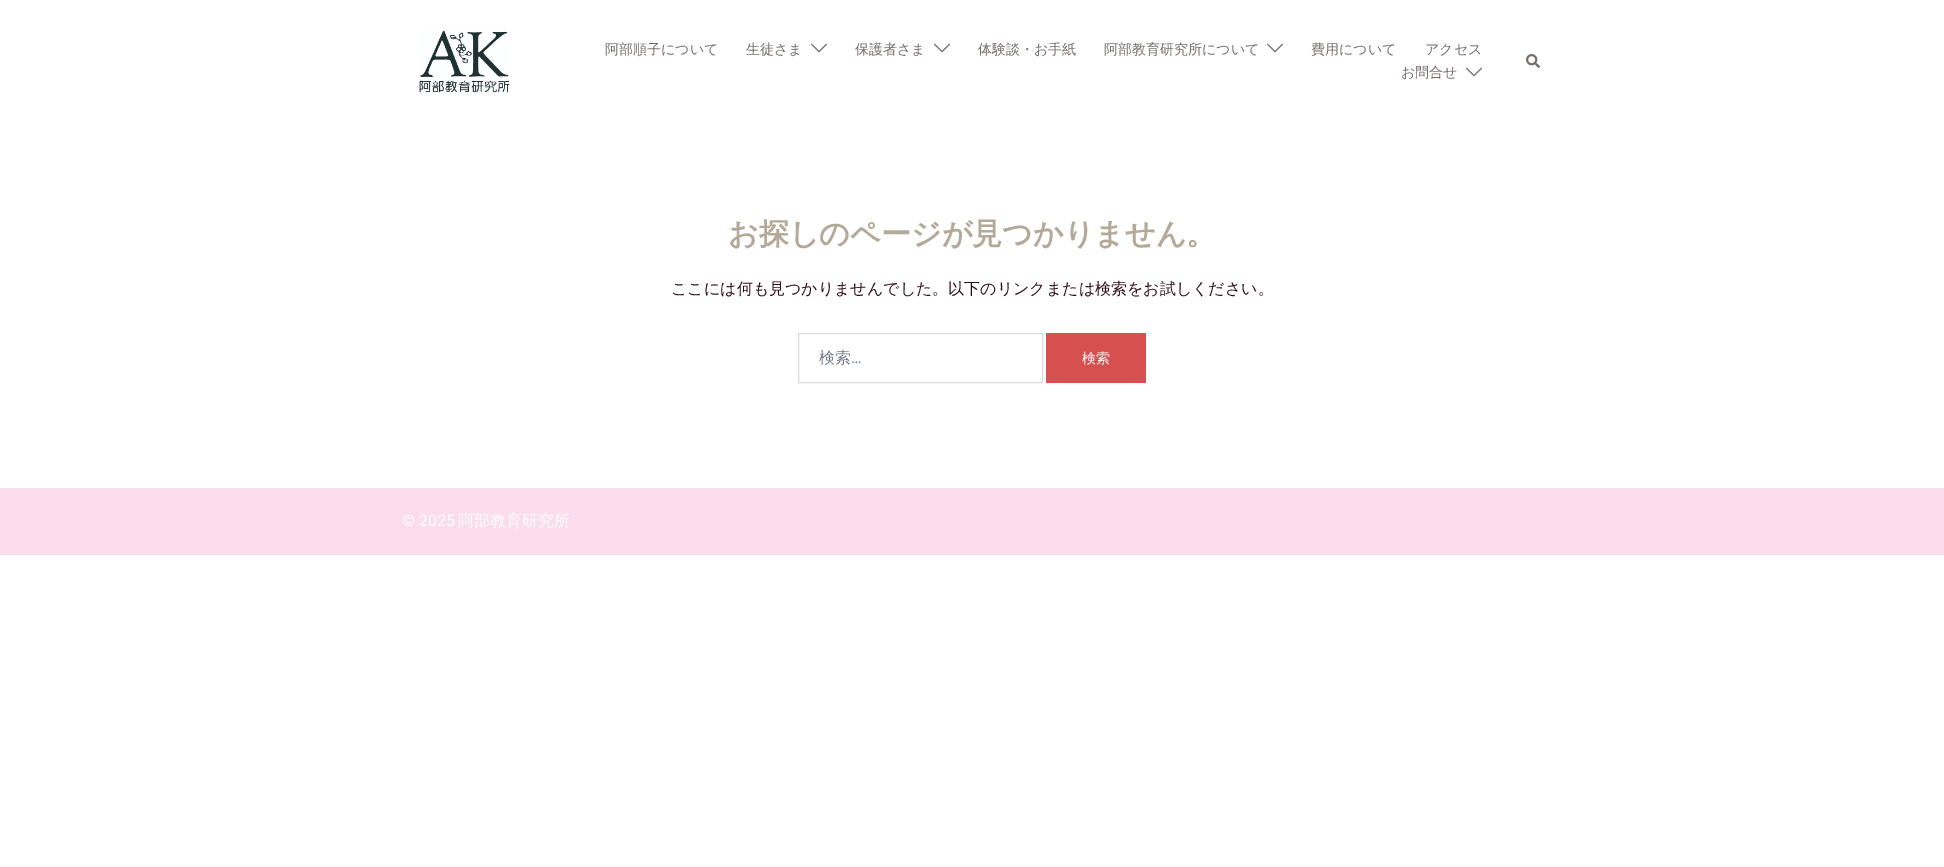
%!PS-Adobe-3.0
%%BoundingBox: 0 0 1944 867
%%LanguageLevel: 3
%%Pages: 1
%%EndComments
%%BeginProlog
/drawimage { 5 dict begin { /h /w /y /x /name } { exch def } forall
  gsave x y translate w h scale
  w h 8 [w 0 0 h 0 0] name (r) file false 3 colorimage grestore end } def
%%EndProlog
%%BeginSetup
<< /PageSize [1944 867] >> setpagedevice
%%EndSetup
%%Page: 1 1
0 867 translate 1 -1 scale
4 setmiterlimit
1 setgray
0 0 1944 867 rectfill
(images/1.raw) 419 30 91 63 drawimage
(images/2.raw) 811 43 16 10 drawimage
(images/2.raw) 934 43 16 10 drawimage
(images/2.raw) 1267 43 16 10 drawimage
(images/2.raw) 1466 67 16 10 drawimage
(images/3.raw) 1526 54 14 14 drawimage
0.859 setgray
798.5 333.5 244 49 rectstroke
0.839 0.314 0.314 setrgbcolor
1046 333 100 50 rectfill
0.984 0.863 0.925 setrgbcolor
0 488 1944 67 rectfill
/WenQuanYiZenHei-Medium [14 0 0 -14 0 0] selectfont
0.459 0.424 0.424 setrgbcolor
605 54 moveto (阿部順子について) show
746 54 moveto (生徒さま) show
855 54 moveto (保護者さま) show
978 54 moveto (体験談・お手紙) show
1104 54 moveto (阿部教育研究所について) show
1311 54 moveto (費用について) show
1425 54 moveto (アクセス) show
1401 77 moveto (お問合せ) show
/WenQuanYiZenHei-Bold [30 0 0 -30 0 0] selectfont
0.702 0.663 0.596 setrgbcolor
728 244 moveto (お探しのページが見つかりません。) show
/WenQuanYiZenHei-Medium [16 0 0 -16 0 0] selectfont
0.184 0.051 0.086 setrgbcolor
671 294 moveto (ここには何も見つかりませんでした。以下のリンクまたは検索をお試しください。) show
0.451 0.486 0.549 setrgbcolor
819 363 moveto (検索) show
/Roboto-Regular [16 0 0 -16 0 0] selectfont
851 363 moveto (…) show
/WenQuanYiZenHei-Medium [14 0 0 -14 0 0] selectfont
1 setgray
1082 363 moveto (検索) show
/Roboto-Regular [16 0 0 -16 0 0] selectfont
402 526 moveto (© 2025) show
/WenQuanYiZenHei-Medium [16 0 0 -16 0 0] selectfont
458 526 moveto (阿部教育研究所) show
showpage
%%EOF
